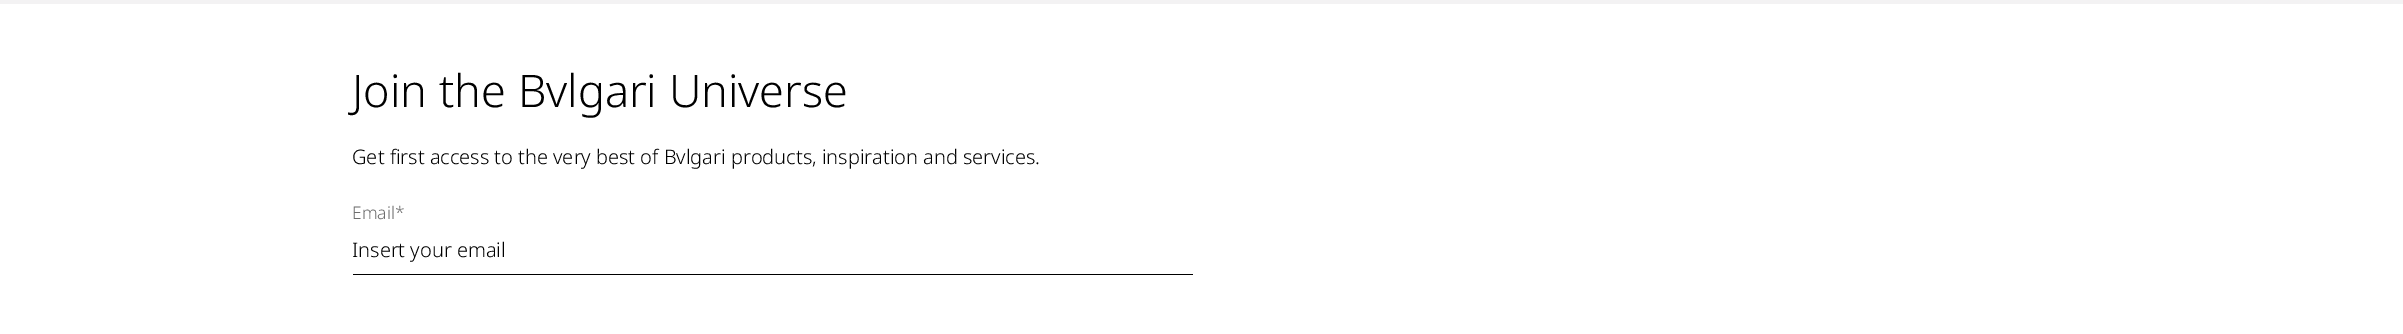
%!PS-Adobe-3.0
%%BoundingBox: 0 0 2403 334
%%LanguageLevel: 3
%%Pages: 1
%%EndComments
%%BeginProlog
%%EndProlog
%%BeginSetup
<< /PageSize [2403 334] >> setpagedevice
%%EndSetup
%%Page: 1 1
0 334 translate 1 -1 scale
4 setmiterlimit
1 setgray
0 0 2403 334 rectfill
0.953 0.949 0.953 setrgbcolor
0 0 2403 4 rectfill
0 setgray
353 274 840 1 rectfill
/NotoSans-Light [45 0 0 -45 0 0] selectfont
352 107 moveto (Join the Bvlgari Universe) show
/NotoSans-Light [20 0 0 -20 0 0] selectfont
352 164 moveto (Get first access to the very best of Bvlgari products, inspiration and services.) show
/NotoSans-Light [17.5 0 0 -17.5 0 0] selectfont
0.431 setgray
352 219 moveto (Email*) show
/NotoSans-Light [20 0 0 -20 0 0] selectfont
0 setgray
352 257 moveto (Insert your email) show
showpage
%%EOF
